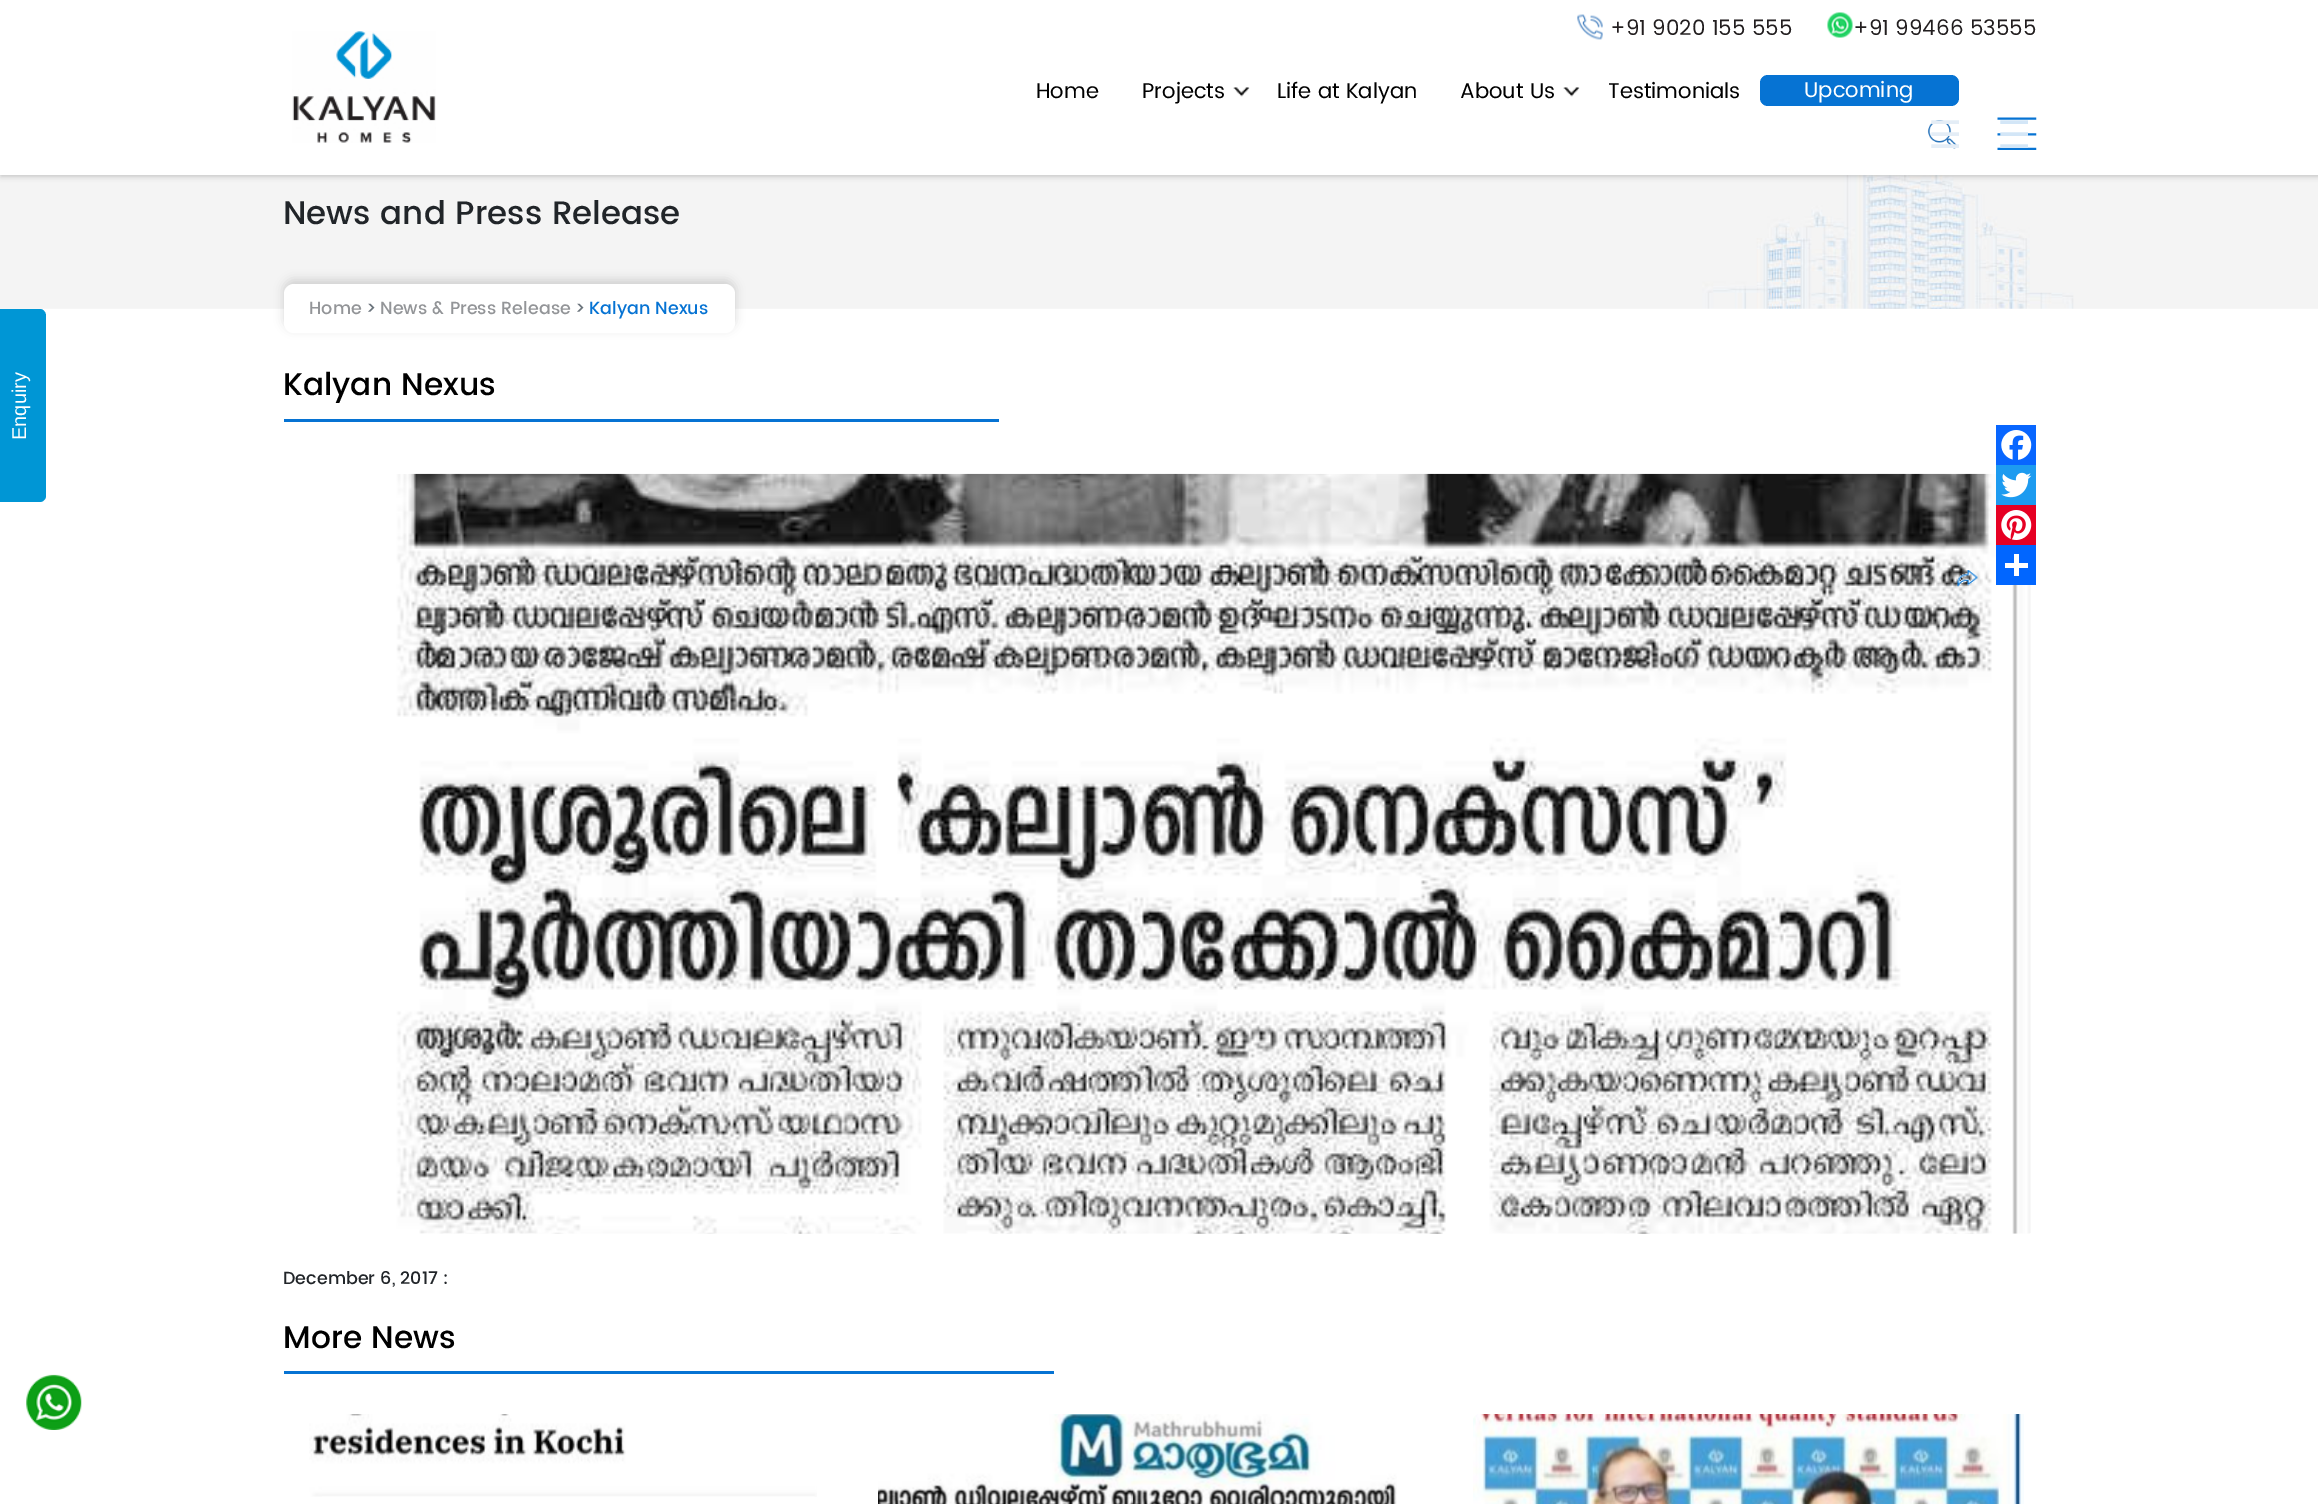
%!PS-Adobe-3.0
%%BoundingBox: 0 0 2318 1504
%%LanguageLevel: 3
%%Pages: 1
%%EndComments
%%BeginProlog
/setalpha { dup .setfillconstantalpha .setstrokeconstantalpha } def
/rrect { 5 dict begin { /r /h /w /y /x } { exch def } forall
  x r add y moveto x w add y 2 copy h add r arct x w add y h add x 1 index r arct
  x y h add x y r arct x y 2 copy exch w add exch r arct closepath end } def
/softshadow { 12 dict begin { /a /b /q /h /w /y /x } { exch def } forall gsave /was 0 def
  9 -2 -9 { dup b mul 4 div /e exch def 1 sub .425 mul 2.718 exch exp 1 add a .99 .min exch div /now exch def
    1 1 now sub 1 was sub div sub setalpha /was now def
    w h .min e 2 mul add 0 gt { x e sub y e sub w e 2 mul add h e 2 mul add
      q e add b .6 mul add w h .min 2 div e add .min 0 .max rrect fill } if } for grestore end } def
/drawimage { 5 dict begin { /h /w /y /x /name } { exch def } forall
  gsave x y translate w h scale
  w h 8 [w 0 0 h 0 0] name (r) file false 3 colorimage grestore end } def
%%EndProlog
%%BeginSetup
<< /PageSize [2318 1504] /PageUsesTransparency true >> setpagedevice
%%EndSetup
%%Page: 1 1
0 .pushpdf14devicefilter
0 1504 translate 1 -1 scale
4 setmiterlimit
1 setgray
0 0 2318 1504 rectfill
(images/8.raw) 0 175 2318 134 drawimage
0 setgray
1 1 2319 175 0 3 0.23 softshadow
1 setgray
0 0 2318 175 rectfill
(images/1.raw) 292 31 144 112 drawimage
(images/2.raw) 1577 14 26 26 drawimage
(images/3.raw) 1827 12 26 26 drawimage
(images/4.raw) 1233 87 17 10 drawimage
(images/5.raw) 1563 87 17 10 drawimage
0.024 0.451 0.827 setrgbcolor
1760 75 199 31 8 rrect fill
(images/6.raw) 1927 120 30 29 drawimage
(images/7.raw) 1997 117 40 33 drawimage
0 0.588 0.835 setrgbcolor
newpath -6 502 moveto -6 309 lineto 40 309 lineto 43 309 46 312 46 316 curveto 46 496 lineto 46 499 43 502 40 502 curveto closepath fill
0 setgray
284 280 451 49 10 5 0.15 softshadow
1 setgray
284 284 451 49 10 rrect fill
0.024 0.451 0.827 setrgbcolor
284 419 715 3 rectfill
(images/13.raw) 396 473 1635 761 drawimage
(images/9.raw) 1957 570 21 17 drawimage
0.031 0.4 1 setrgbcolor
1996 425 40 40 rectfill
(images/10.raw) 2001 430 31 30 drawimage
0.114 0.608 0.941 setrgbcolor
1996 465 40 40 rectfill
(images/11.raw) 2001 472 31 26 drawimage
0.902 0 0.137 setrgbcolor
1996 505 40 40 rectfill
(images/12.raw) 2001 510 31 30 drawimage
0.004 0.4 1 setrgbcolor
1996 545 40 40 rectfill
1 setgray
2014 554 5 22 rectfill
2005 563 23 5 rectfill
0.024 0.451 0.827 setrgbcolor
284 1371 770 3 rectfill
(images/14.raw) 309 1414 508 83 drawimage
(images/15.raw) 878 1414 519 90 drawimage
(images/16.raw) 1473 1414 551 90 drawimage
(images/17.raw) 26 1374 56 56 drawimage
/Poppins-Regular [21.25 0 0 -21.25 0 0] selectfont
0.133 0.118 0.122 setrgbcolor
1610 35 moveto (+91 9020 155 555) show
1853 35 moveto (+91 99466 53555) show
0 setgray
1036 98 moveto (Home) show
1142 98 moveto (Projects) show
1277 98 moveto (Life at Kalyan) show
1460 98 moveto (About Us) show
1608 98 moveto (Testimonials) show
1 setgray
1804 97 moveto (Upcoming) show
/DejaVuSans-Regular [38 0 0 -38 0 0] selectfont
0.894 0.929 0.965 setrgbcolor
1928 148 moveto (☰) show
0.827 0.902 0.969 setrgbcolor
1997 148 moveto (☰) show
/LiberationSans-Regular [20 0 0 -20 0 0] selectfont
1 setgray
gsave 26 440 translate -90 rotate 0 0 moveto (Enquiry) show grestore
/Poppins-Medium [32.5 0 0 -32.5 0 0] selectfont
0.129 0.145 0.161 setrgbcolor
283 224 moveto (News and Press Release) show
/Poppins-Medium [17.5 0 0 -17.5 0 0] selectfont
0.576 0.584 0.596 setrgbcolor
309 314 moveto (Home) show
0.424 0.459 0.49 setrgbcolor
366 314 moveto (>) show
0.576 0.584 0.596 setrgbcolor
380 314 moveto (News & Press Release) show
0.424 0.459 0.49 setrgbcolor
575 314 moveto (>) show
0.024 0.451 0.827 setrgbcolor
589 314 moveto (Kalyan Nexus) show
/Poppins-Medium [31.25 0 0 -31.25 0 0] selectfont
0 setgray
283 395 moveto (Kalyan Nexus) show
/Poppins-Medium [17.5 0 0 -17.5 0 0] selectfont
0.129 0.145 0.161 setrgbcolor
283 1284 moveto (December 6, 2017 :) show
/Poppins-Medium [31.25 0 0 -31.25 0 0] selectfont
0 setgray
283 1348 moveto (More News) show
.poppdf14devicefilter showpage
%%EOF
